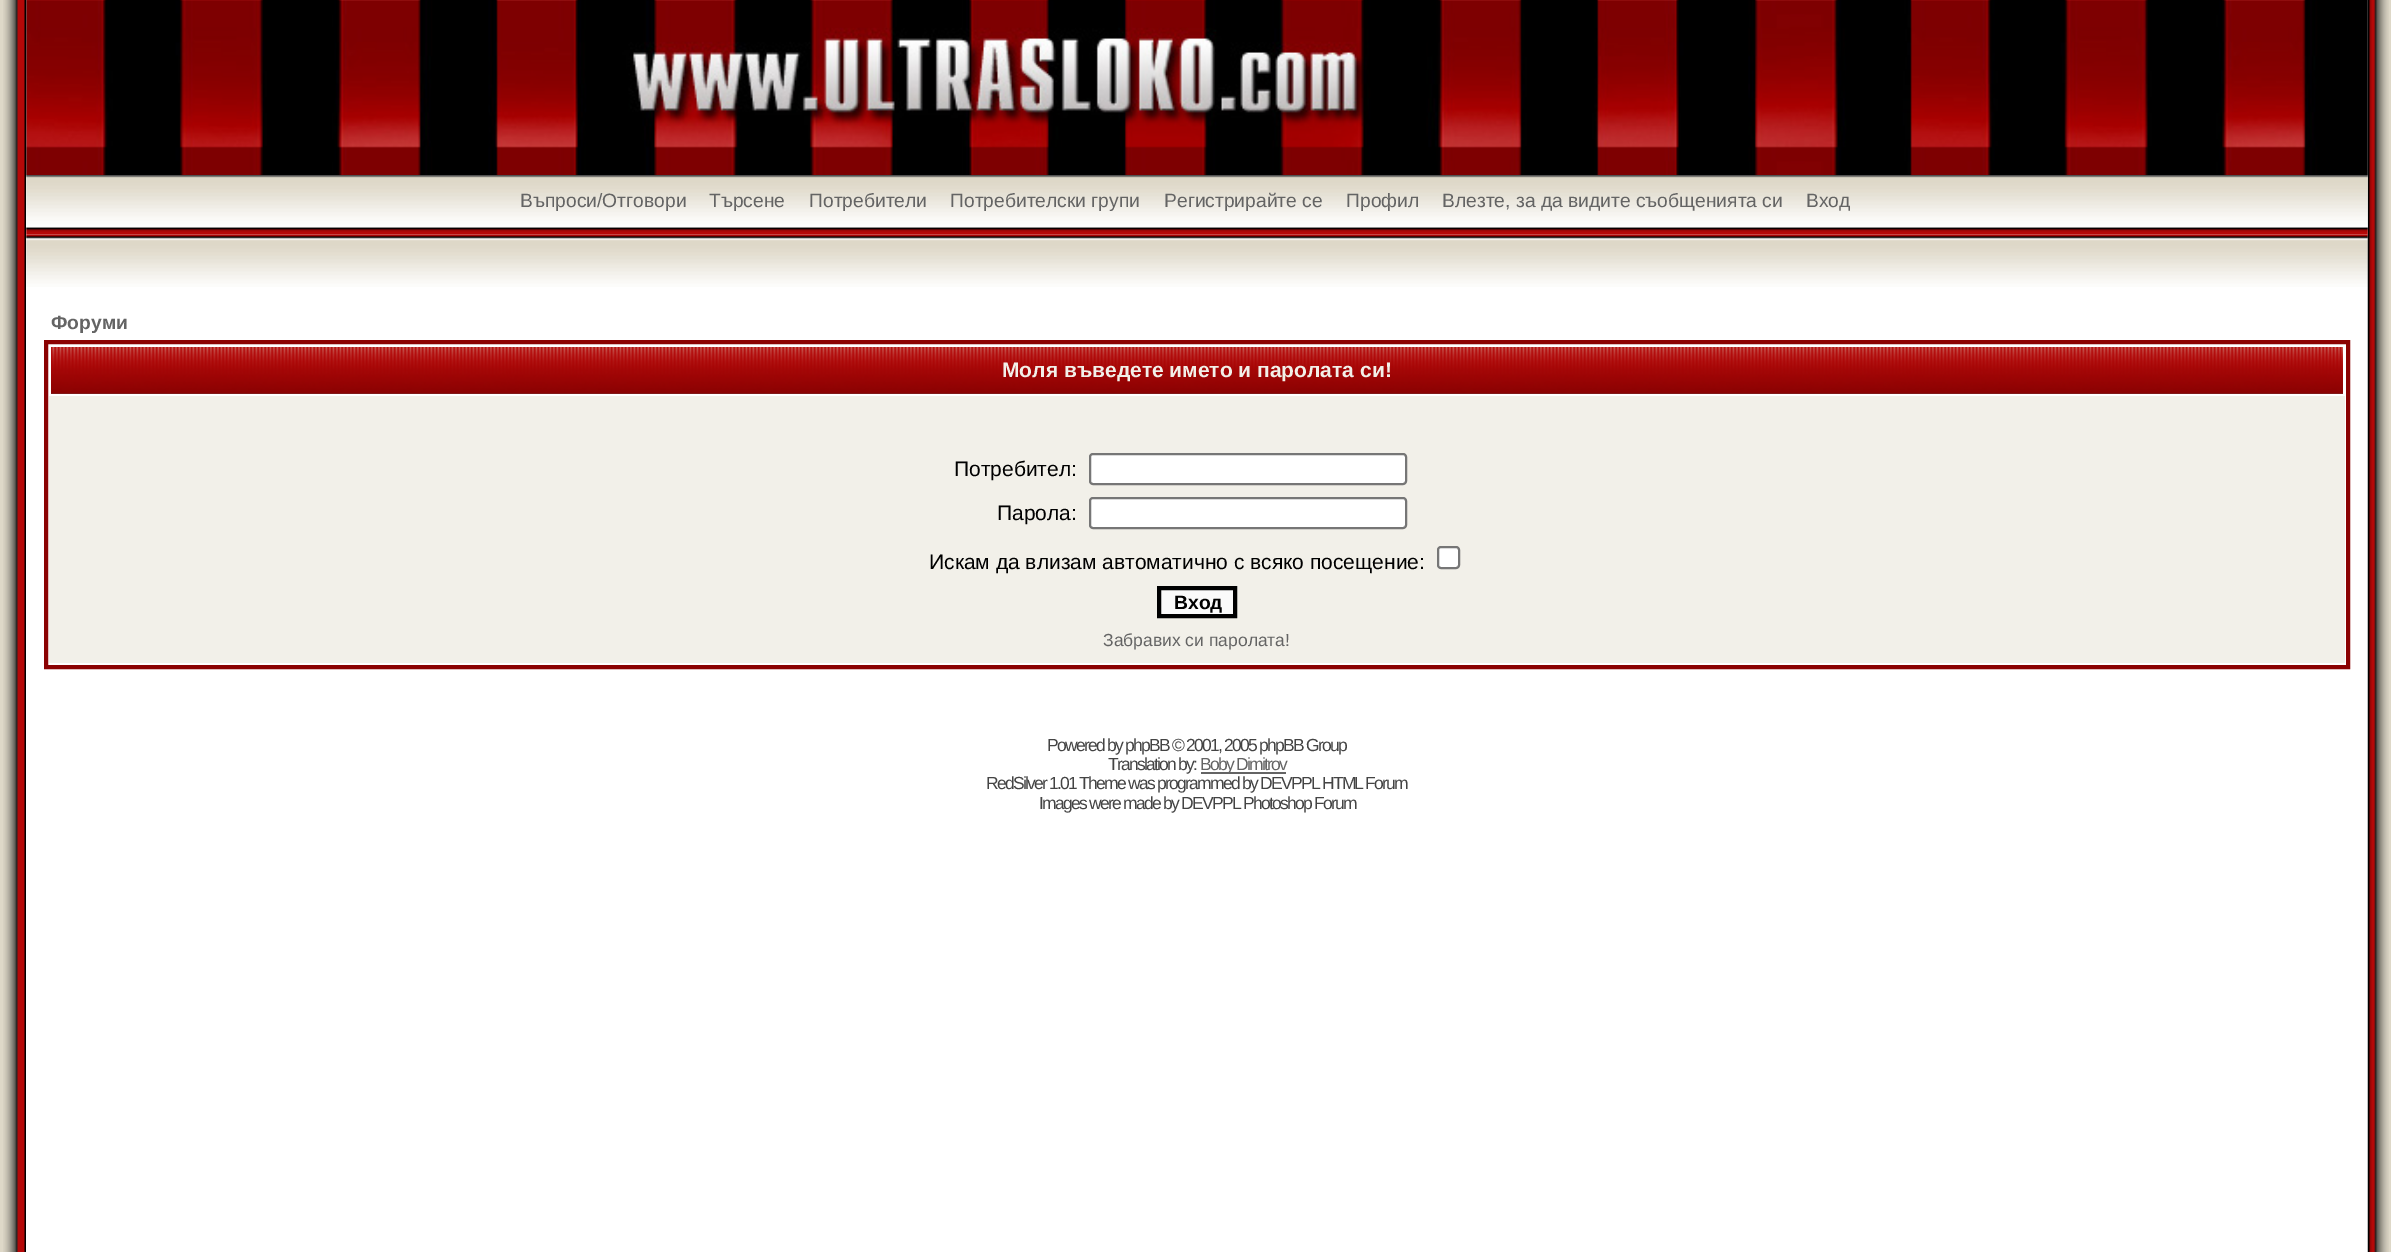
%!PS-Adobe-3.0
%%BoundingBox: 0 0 2391 1252
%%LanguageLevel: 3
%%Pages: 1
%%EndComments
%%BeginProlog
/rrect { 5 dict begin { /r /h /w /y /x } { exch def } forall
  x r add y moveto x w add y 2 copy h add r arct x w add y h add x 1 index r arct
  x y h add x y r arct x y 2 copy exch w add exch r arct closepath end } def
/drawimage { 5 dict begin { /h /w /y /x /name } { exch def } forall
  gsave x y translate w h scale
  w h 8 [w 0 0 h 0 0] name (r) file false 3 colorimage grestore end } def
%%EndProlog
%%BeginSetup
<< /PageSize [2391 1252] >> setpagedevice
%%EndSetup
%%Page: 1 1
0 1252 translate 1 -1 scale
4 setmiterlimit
0.871 0.847 0.784 setrgbcolor
0 0 2391 1252 rectfill
(images/1.raw) 3 0 23 1252 drawimage
1 setgray
26 0 2342 1252 rectfill
(images/2.raw) 26 0 2342 175 drawimage
(images/4.raw) 26 234 2342 53 drawimage
(images/6.raw) 2367 0 22 1252 drawimage
(images/3.raw) 26 175 2342 60 drawimage
0.545 0.008 0.008 setrgbcolor
4 setlinewidth
46 342 2302 325 rectstroke
(images/5.raw) 49 344 2296 50 drawimage
1 setgray
49 345 2296 2 rectfill
2343 345 2 49 rectfill
49 345 2 49 rectfill
0.949 0.941 0.914 setrgbcolor
49 396 2296 267 rectfill
1 setgray
1090 454 316 30 3 rrect gsave fill grestore
0.463 setgray
2 setlinewidth
stroke
1 setgray
1090 498 316 30 3 rrect gsave fill grestore
0.463 setgray
stroke
1 setgray
1438 547 21 21 3 rrect gsave fill grestore
0.463 setgray
stroke
0.98 setgray
newpath 1159 588 moveto 1235 588 lineto 1235 616 lineto 1159 616 lineto closepath gsave fill grestore
0 setgray
4 setlinewidth
stroke
0.392 setgray
1201 772 85 2 rectfill
/LiberationSans-Regular [19.25 0 0 -19.25 0 0] selectfont
520 207 moveto (Въпроси/Отговори) show
709 207 moveto (Търсене) show
809 207 moveto (Потребители) show
950 207 moveto (Потребителски групи) show
1164 207 moveto (Регистрирайте се) show
1346 207 moveto (Профил) show
1442 207 moveto (Влезте, за да видите съобщенията си) show
1806 207 moveto (Вход) show
/LiberationSans-Bold [19.25 0 0 -19.25 0 0] selectfont
51 329 moveto (Форуми) show
/LiberationSans-Bold [21 0 0 -21 0 0] selectfont
0.949 0.941 0.914 setrgbcolor
1002 377 moveto (Моля въведете името и паролата си!) show
/LiberationSans-Regular [21 0 0 -21 0 0] selectfont
0 setgray
954 476 moveto (Потребител:) show
997 520 moveto (Парола:) show
929 569 moveto (Искам да влизам автоматично с всяко посещение:) show
/LiberationSans-Bold [19.25 0 0 -19.25 0 0] selectfont
1174 609 moveto (Вход) show
/LiberationSans-Regular [17.5 0 0 -17.5 0 0] selectfont
0.392 setgray
1103 646 moveto (Забравих си паролата!) show
0.267 setgray
1047 751 moveto -1.75 0 (Powered by phpBB © 2001, 2005 phpBB Group) ashow
1108 770 moveto -1.75 0 (Translation by:) ashow
0.392 setgray
1200 770 moveto -1.75 0 (Boby Dimitrov) ashow
0.267 setgray
986 789 moveto -1.75 0 (RedSilver 1.01 Theme was programmed by DEVPPL HTML Forum) ashow
1039 809 moveto -1.75 0 (Images were made by DEVPPL Photoshop Forum) ashow
showpage
%%EOF
